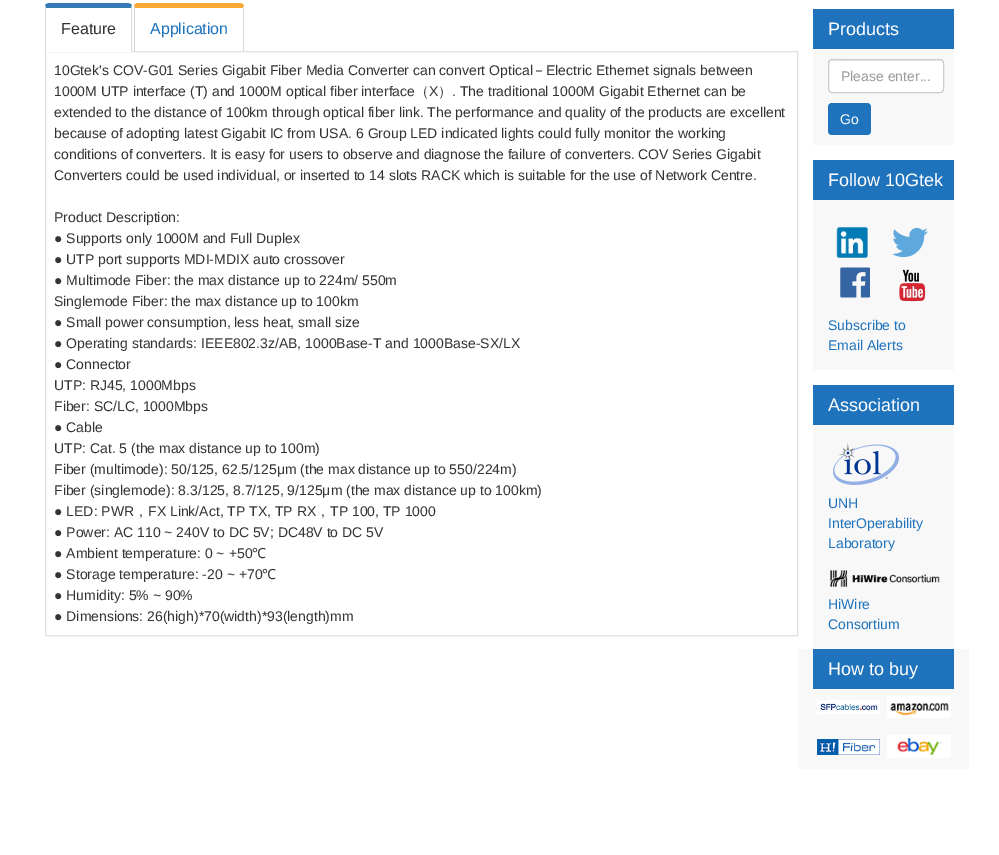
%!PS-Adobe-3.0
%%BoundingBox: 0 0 999 855
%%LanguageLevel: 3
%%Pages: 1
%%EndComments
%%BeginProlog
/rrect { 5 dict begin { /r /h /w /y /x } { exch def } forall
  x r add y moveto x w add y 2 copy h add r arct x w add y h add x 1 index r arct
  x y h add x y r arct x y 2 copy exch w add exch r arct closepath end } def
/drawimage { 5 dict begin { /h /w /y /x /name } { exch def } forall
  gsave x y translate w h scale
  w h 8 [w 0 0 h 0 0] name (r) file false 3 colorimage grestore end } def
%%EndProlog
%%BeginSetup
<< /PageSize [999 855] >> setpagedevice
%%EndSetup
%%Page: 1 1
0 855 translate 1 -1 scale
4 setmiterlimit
1 setgray
0 0 999 855 rectfill
0.878 setgray
45.5 51.5 752 584 rectstroke
1 setgray
newpath 49 3 moveto 128 3 lineto 130 3 132 5 132 7 curveto 132 52 lineto 45 52 lineto 45 7 lineto 45 5 47 3 49 3 curveto closepath fill
0.2 0.478 0.718 setrgbcolor
newpath 49 3 moveto 48 3 46 4 45 5 curveto 46 8 lineto 131 8 lineto 132 5 lineto 131 4 129 3 128 3 curveto closepath fill
0.847 setgray
newpath 132 52 moveto 132 7 lineto 132 5 lineto 131 8 lineto 131 51 lineto closepath fill
newpath 45 52 moveto 46 51 lineto 46 8 lineto 45 5 lineto 45 7 lineto closepath fill
0.98 0.663 0.216 setrgbcolor
newpath 138 3 moveto 137 3 135 4 134 5 curveto 135 8 lineto 243 8 lineto 244 5 lineto 243 4 241 3 240 3 curveto closepath fill
0.847 setgray
newpath 244 52 moveto 244 7 lineto 244 5 lineto 243 8 lineto 243 51 lineto closepath fill
newpath 134 52 moveto 135 51 lineto 135 8 lineto 134 5 lineto 134 7 lineto closepath fill
0.973 setgray
813 49 141 96 rectfill
0.122 0.451 0.737 setrgbcolor
813 9 141 40 rectfill
1 setgray
828 59 116 34 4 rrect fill
0.925 setgray
newpath 832 61 moveto 940 61 lineto 942 61 943 62 943 64 curveto 943 62 942 60 940 60 curveto 850 60 lineto 848 60 829 55 829 64 curveto 829 62 830 61 832 61 curveto closepath fill
0.8 setgray
828.5 59.5 115 33 3.5 rrect stroke
0.122 0.451 0.737 setrgbcolor
828 103 43 32 4 rrect fill
0.973 setgray
813 200 141 170 rectfill
0.122 0.451 0.737 setrgbcolor
813 160 141 40 rectfill
(images/1.raw) 836 227 32 31 drawimage
(images/2.raw) 893 227 35 31 drawimage
(images/3.raw) 840 267 30 31 drawimage
(images/4.raw) 899 269 27 33 drawimage
0.973 setgray
813 425 141 224 rectfill
0.122 0.451 0.737 setrgbcolor
813 385 141 40 rectfill
(images/5.raw) 833 443 66 42 drawimage
(images/6.raw) 830 570 110 17 drawimage
0.973 setgray
798 649 171 120 rectfill
0.122 0.451 0.737 setrgbcolor
813 649 141 40 rectfill
(images/7.raw) 817 700 63 14 drawimage
(images/8.raw) 887 696 64 22 drawimage
(images/9.raw) 817 739 63 16 drawimage
(images/10.raw) 887 735 64 23 drawimage
/LiberationSans-Regular [16 0 0 -16 0 0] selectfont
0.2 setgray
61 34 moveto (Feature) show
0.118 0.451 0.741 setrgbcolor
150 34 moveto (Application) show
/LiberationSans-Regular [14 0 0 -14 0 0] selectfont
0.2 setgray
54 75 moveto (10Gtek's COV-G01 Series Gigabit Fiber Media Converter can convert Optical) show
/WenQuanYiZenHei-Medium [14 0 0 -14 0 0] selectfont
532 75 moveto (－) show
/LiberationSans-Regular [14 0 0 -14 0 0] selectfont
546 75 moveto (Electric Ethernet signals between) show
54 96 moveto (1000M UTP interface \(T\) and 1000M optical fiber interface) show
/WenQuanYiZenHei-Medium [14 0 0 -14 0 0] selectfont
415 96 moveto (（) show
/LiberationSans-Regular [14 0 0 -14 0 0] selectfont
429 96 moveto (X) show
/WenQuanYiZenHei-Medium [14 0 0 -14 0 0] selectfont
438 96 moveto (）) show
/LiberationSans-Regular [14 0 0 -14 0 0] selectfont
452 96 moveto (. The traditional 1000M Gigabit Ethernet can be) show
54 117 moveto (extended to the distance of 100km through optical fiber link. The performance and quality of the products are excellent) show
54 138 moveto (because of adopting latest Gigabit IC from USA. 6 Group LED indicated lights could fully monitor the working) show
54 159 moveto (conditions of converters. It is easy for users to observe and diagnose the failure of converters. COV Series Gigabit) show
54 180 moveto (Converters could be used individual, or inserted to 14 slots RACK which is suitable for the use of Network Centre.) show
54 222 moveto (Product Description:) show
54 243 moveto (● Supports only 1000M and Full Duplex) show
54 264 moveto (● UTP port supports MDI-MDIX auto crossover) show
54 285 moveto (● Multimode Fiber: the max distance up to 224m/ 550m) show
54 306 moveto (Singlemode Fiber: the max distance up to 100km) show
54 327 moveto (● Small power consumption, less heat, small size) show
54 348 moveto (● Operating standards: IEEE802.3z/AB, 1000Base-T and 1000Base-SX/LX) show
54 369 moveto (● Connector) show
54 390 moveto (UTP: RJ45, 1000Mbps) show
54 411 moveto (Fiber: SC/LC, 1000Mbps) show
54 432 moveto (● Cable) show
54 453 moveto (UTP: Cat. 5 \(the max distance up to 100m\)) show
54 474 moveto (Fiber \(multimode\): 50/125, 62.5/125μm \(the max distance up to 550/224m\)) show
54 495 moveto (Fiber \(singlemode\): 8.3/125, 8.7/125, 9/125μm \(the max distance up to 100km\)) show
54 516 moveto (● LED: PWR) show
/WenQuanYiZenHei-Medium [14 0 0 -14 0 0] selectfont
134 516 moveto (，) show
/LiberationSans-Regular [14 0 0 -14 0 0] selectfont
148 516 moveto (FX Link/Act, TP TX, TP RX) show
/WenQuanYiZenHei-Medium [14 0 0 -14 0 0] selectfont
316 516 moveto (，) show
/LiberationSans-Regular [14 0 0 -14 0 0] selectfont
330 516 moveto (TP 100, TP 1000) show
54 537 moveto (● Power: AC 110 ~ 240V to DC 5V; DC48V to DC 5V) show
54 558 moveto (● Ambient temperature: 0 ~ +50) show
/NotoSans-Regular [14 0 0 -14 0 0] selectfont
252 558 moveto (℃) show
/LiberationSans-Regular [14 0 0 -14 0 0] selectfont
54 579 moveto (● Storage temperature: -20 ~ +70) show
/NotoSans-Regular [14 0 0 -14 0 0] selectfont
262 579 moveto (℃) show
/LiberationSans-Regular [14 0 0 -14 0 0] selectfont
54 600 moveto (● Humidity: 5% ~ 90%) show
54 621 moveto (● Dimensions: 26\(high\)*70\(width\)*93\(length\)mm) show
/LiberationSans-Regular [18 0 0 -18 0 0] selectfont
1 setgray
828 35 moveto (Products) show
/LiberationSans-Regular [14 0 0 -14 0 0] selectfont
0.6 setgray
841 81 moveto (Please enter...) show
1 setgray
840 124 moveto (Go) show
/LiberationSans-Regular [18 0 0 -18 0 0] selectfont
828 186 moveto (Follow 10Gtek) show
/LiberationSans-Regular [14 0 0 -14 0 0] selectfont
0.118 0.451 0.741 setrgbcolor
828 330 moveto (Subscribe to) show
828 350 moveto (Email Alerts) show
/LiberationSans-Regular [18 0 0 -18 0 0] selectfont
1 setgray
828 411 moveto (Association) show
/LiberationSans-Regular [14 0 0 -14 0 0] selectfont
0.118 0.451 0.741 setrgbcolor
828 508 moveto (UNH) show
828 528 moveto (InterOperability) show
828 548 moveto (Laboratory) show
828 609 moveto (HiWire) show
828 629 moveto (Consortium) show
/LiberationSans-Regular [18 0 0 -18 0 0] selectfont
1 setgray
828 675 moveto (How to buy) show
showpage
%%EOF
